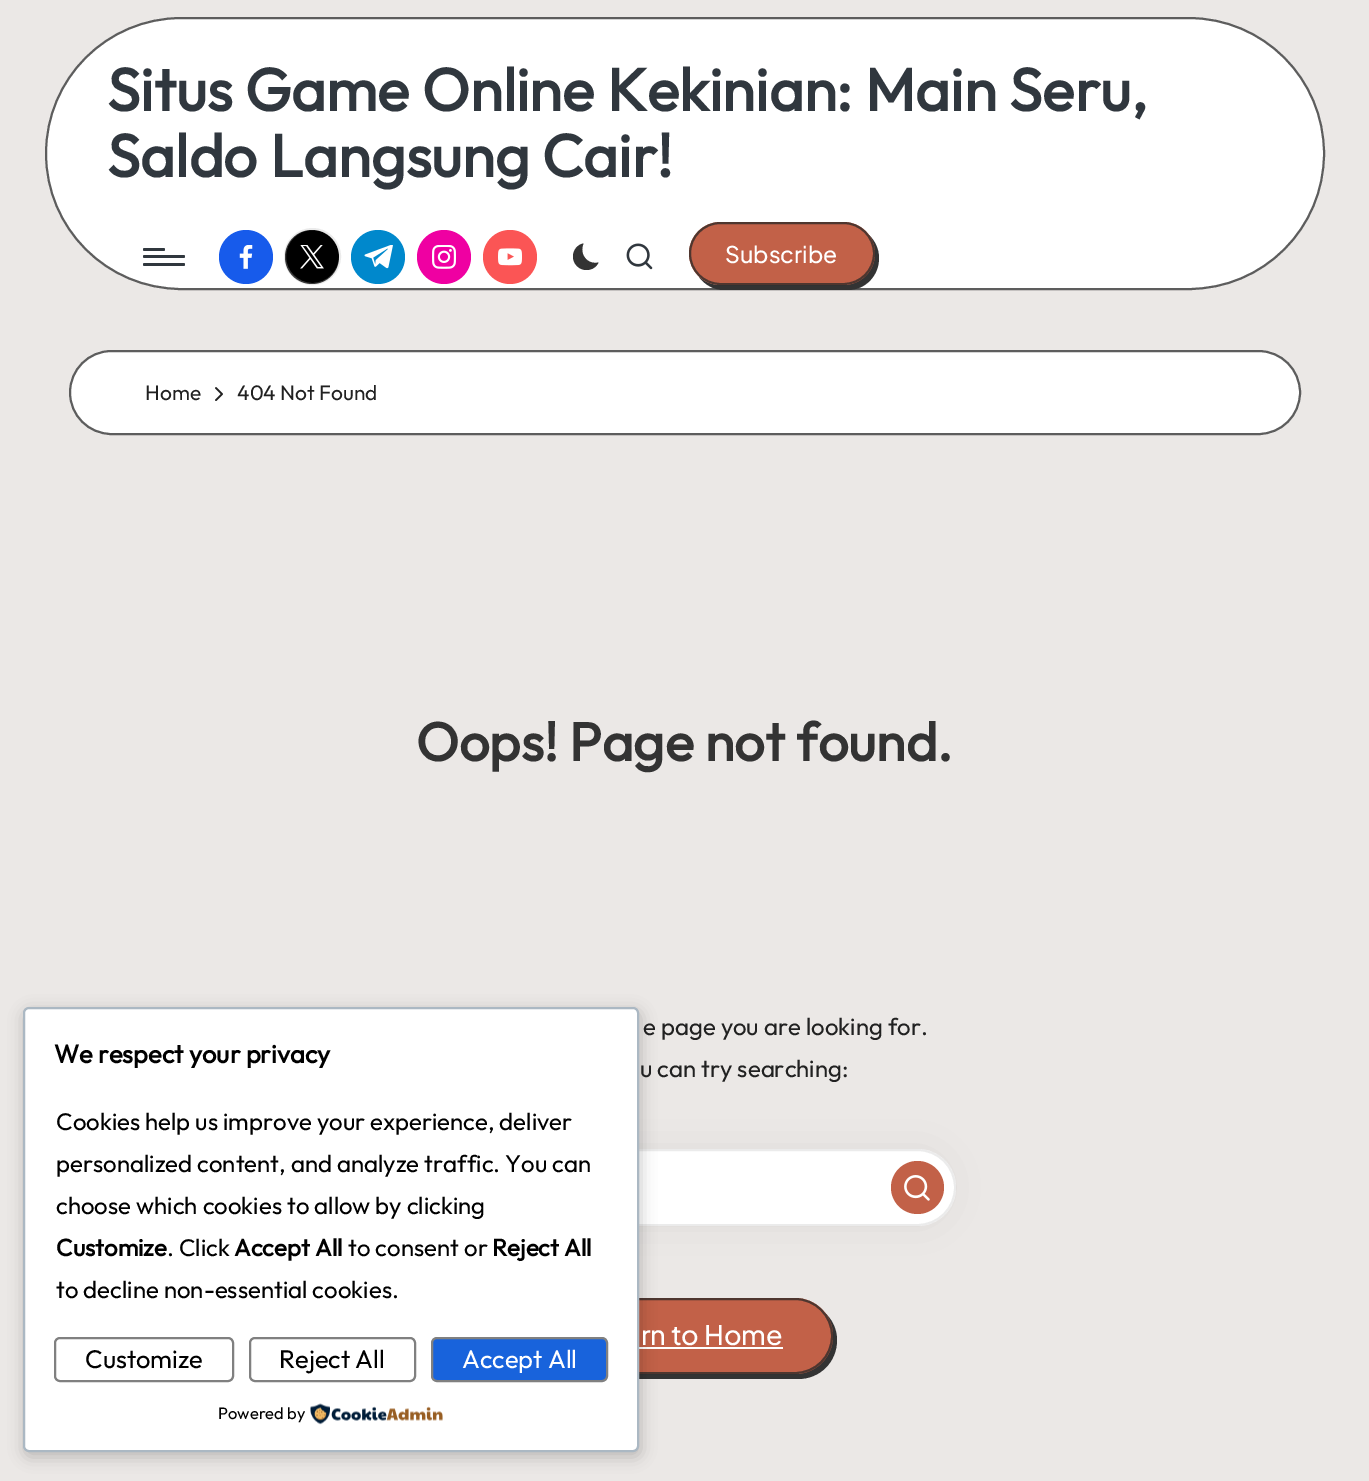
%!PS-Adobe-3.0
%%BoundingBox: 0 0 1369 1481
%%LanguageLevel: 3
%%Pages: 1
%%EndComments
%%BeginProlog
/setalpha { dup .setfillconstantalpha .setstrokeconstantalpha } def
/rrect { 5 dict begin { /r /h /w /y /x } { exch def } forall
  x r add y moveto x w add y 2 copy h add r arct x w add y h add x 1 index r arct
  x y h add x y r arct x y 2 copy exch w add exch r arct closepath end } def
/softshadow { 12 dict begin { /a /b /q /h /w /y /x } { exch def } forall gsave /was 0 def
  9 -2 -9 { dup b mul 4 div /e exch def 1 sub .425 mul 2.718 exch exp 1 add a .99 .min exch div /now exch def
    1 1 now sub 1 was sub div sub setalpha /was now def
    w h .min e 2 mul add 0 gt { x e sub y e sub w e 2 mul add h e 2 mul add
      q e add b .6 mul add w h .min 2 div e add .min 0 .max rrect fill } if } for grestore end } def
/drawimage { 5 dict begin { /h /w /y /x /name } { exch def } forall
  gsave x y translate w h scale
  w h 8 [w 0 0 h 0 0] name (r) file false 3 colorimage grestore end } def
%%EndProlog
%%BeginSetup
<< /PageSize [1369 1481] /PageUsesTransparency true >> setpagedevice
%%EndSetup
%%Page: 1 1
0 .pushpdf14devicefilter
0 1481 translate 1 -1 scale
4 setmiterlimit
0.922 0.91 0.902 setrgbcolor
0 0 1369 1481 rectfill
1 setgray
45 17 1280 273 136.5 rrect fill
0.75 setalpha
0.153 setgray
2 setlinewidth
46 18 1278 271 135.5 rrect stroke
1 setalpha
0.188 0.216 0.243 setrgbcolor
143 255 42 3 1.5 rrect fill
143 248 22 3 1.5 rrect fill
143 263 42 3 1.5 rrect fill
0.09 0.357 0.922 setrgbcolor
newpath 246 257 27 0 360 arc closepath fill
(images/1.raw) 239 245 14 24 drawimage
0 setgray
newpath 312 257 27 0 360 arc closepath fill
0.3 setalpha
0.745 setgray
newpath 312.5 256.5 27.5 0 360 arc closepath stroke
1 setalpha
(images/2.raw) 300 245 24 24 drawimage
0 0.533 0.8 setrgbcolor
newpath 378 257 27 0 360 arc closepath fill
(images/3.raw) 364 245 29 24 drawimage
0.937 0 0.635 setrgbcolor
newpath 444 257 27 0 360 arc closepath fill
(images/4.raw) 432 245 24 24 drawimage
0.984 0.333 0.333 setrgbcolor
newpath 510 257 27 0 360 arc closepath fill
(images/5.raw) 498 248 24 18 drawimage
0.2 setgray
newpath 598.5 262.5 moveto 587 265 579 254 583.5 243.5 curveto 577.5 244.5 573 250 573 256.5 curveto 573 264 579 270 586.5 270 curveto 592 270 596.5 267 598.5 262.5 curveto closepath fill
(images/6.raw) 626 243 27 27 drawimage
newpath 699 277 moveto 705 285 714 290 724 290 curveto 848 290 lineto 865 290 879 276 879 258 curveto 879 249 875 241 869 235 curveto 872 240 874 247 874 254 curveto 874 271 860 285 843 285 curveto 720 285 lineto 712 285 705 282 699 277 curveto closepath fill
0.761 0.38 0.282 setrgbcolor
689 222 186 63 31.5 rrect fill
0.75 setalpha
0.153 setgray
690 223 184 61 30.5 rrect stroke
1 setalpha
1 setgray
69 350 1232 85 42.5 rrect fill
0.75 setalpha
0.153 setgray
70 351 1230 83 41.5 rrect stroke
1 setalpha
(images/7.raw) 215 387 8 14 drawimage
0 setgray
435 1173 492 29 14.5 24 0.15 softshadow
1 setgray
416 1149 540 77 38.5 rrect fill
0.3 setalpha
0.745 setgray
417 1150 538 75 37.5 rrect stroke
1 setalpha
0.761 0.38 0.282 setrgbcolor
newpath 917.5 1187.5 26.5 0 360 arc closepath fill
(images/8.raw) 904 1175 26 26 drawimage
0.2 setgray
newpath 545 1366 moveto 552 1374 563 1379 574 1379 curveto 798 1379 lineto 820 1379 837 1362 837 1340 curveto 837 1329 832 1319 824 1312 curveto 829 1318 832 1327 832 1336 curveto 832 1357 815 1374 794 1374 curveto 569 1374 lineto 560 1374 552 1371 545 1366 curveto closepath fill
0.761 0.38 0.282 setrgbcolor
531 1298 302 76 38 rrect fill
0.75 setalpha
0.153 setgray
532 1299 300 74 37 rrect stroke
1 setalpha
1 setgray
639 1347 144 2 rectfill
0 setgray
24 1011 617 446 6 7.5 0.2 softshadow
1 setgray
24 1008 614 443 5 rrect gsave fill grestore
0.671 0.722 0.765 setrgbcolor
stroke
0.502 setgray
55 1338 178 43 5 rrect stroke
250 1338 165 43 5 rrect stroke
0.094 0.388 0.863 setrgbcolor
432 1338 175 43 5 rrect gsave fill grestore
0.502 setgray
stroke
(images/9.raw) 310 1403 133 22 drawimage
/Outfit-Bold [60 0 0 -60 0 0] selectfont
0.188 0.216 0.243 setrgbcolor
107 111 moveto (Situs Game Online Kekinian: Main Seru,) show
107 177 moveto (Saldo Langsung Cair!) show
/PlusJakartaSans-Medium [23 0 0 -23 0 0] selectfont
1 setgray
725 263 moveto (Subscribe) show
/Outfit-Thin [21 0 0 -21 0 0] selectfont
0.129 setgray
145 400 moveto (Home) show
237 400 moveto (404 Not Found) show
/Outfit-Bold [54 0 0 -54 0 0] selectfont
0.2 setgray
416 761 moveto (Oops! Page not found.) show
/Outfit-Thin [24 0 0 -24 0 0] selectfont
0.129 setgray
643 1035 moveto (e page you are looking for.) show
640 1077 moveto (u can try searching:) show
/PlusJakartaSans-Medium [27 0 0 -27 0 0] selectfont
1 setgray
641 1345 moveto (rn to Home) show
/Outfit-Bold [25.5 0 0 -25.5 0 0] selectfont
0 setgray
54 1063 moveto (We respect your privacy) show
/Outfit-Thin [24 0 0 -24 0 0] selectfont
56 1130 moveto (Cookies help us improve your experience, deliver) show
56 1172 moveto (personalized content, and analyze traffic. You can) show
56 1214 moveto (choose which cookies to allow by clicking) show
/Outfit-Bold [24 0 0 -24 0 0] selectfont
56 1256 moveto (Customize) show
/Outfit-Thin [24 0 0 -24 0 0] selectfont
167 1256 moveto (. Click) show
/Outfit-Bold [24 0 0 -24 0 0] selectfont
234 1256 moveto (Accept All) show
/Outfit-Thin [24 0 0 -24 0 0] selectfont
348 1256 moveto (to consent or) show
/Outfit-Bold [24 0 0 -24 0 0] selectfont
492 1256 moveto (Reject All) show
/Outfit-Thin [24 0 0 -24 0 0] selectfont
56 1298 moveto (to decline non-essential cookies.) show
/Outfit-Thin [25.5 0 0 -25.5 0 0] selectfont
85 1368 moveto (Customize) show
279 1368 moveto (Reject All) show
1 setgray
462 1368 moveto (Accept All) show
/Outfit-Thin [16.5 0 0 -16.5 0 0] selectfont
0 setgray
218 1419 moveto (Powered by) show
.poppdf14devicefilter showpage
%%EOF
